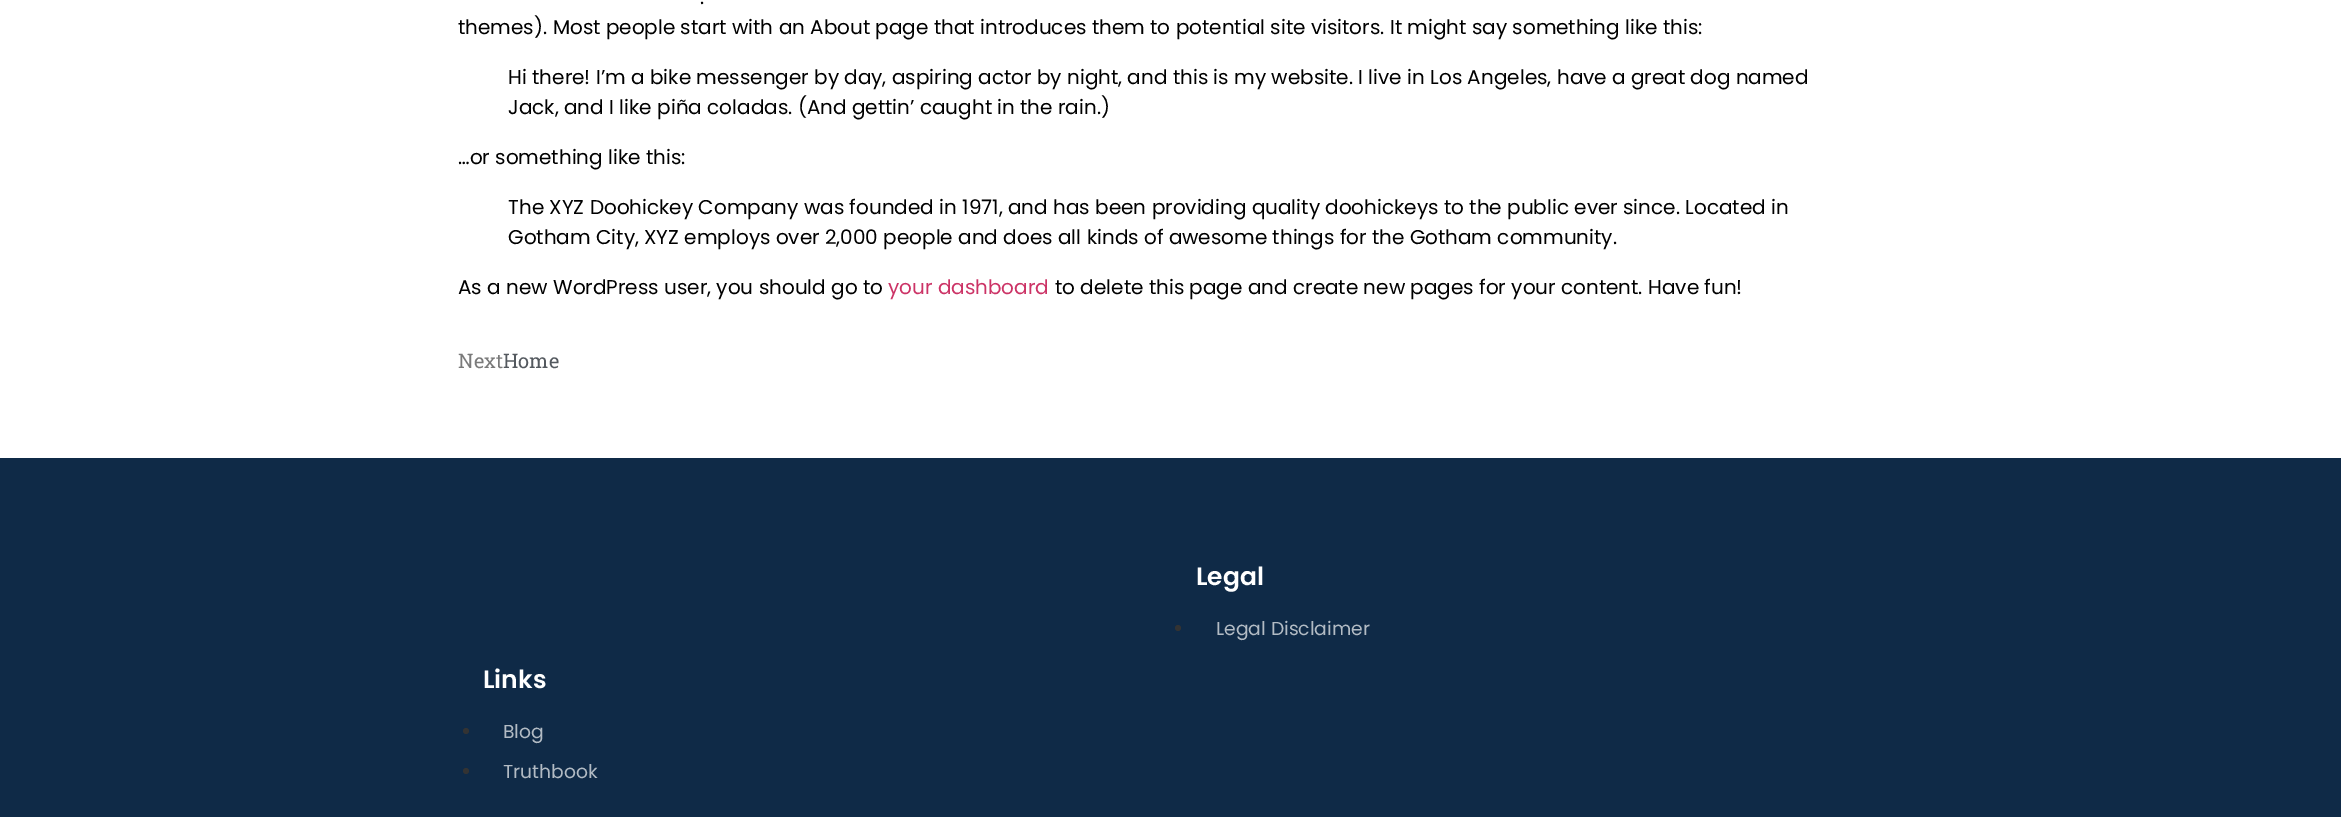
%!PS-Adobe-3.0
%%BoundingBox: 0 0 2341 817
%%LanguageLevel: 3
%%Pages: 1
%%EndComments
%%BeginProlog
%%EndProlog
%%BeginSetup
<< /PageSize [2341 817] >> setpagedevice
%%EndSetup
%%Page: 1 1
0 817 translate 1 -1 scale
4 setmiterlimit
1 setgray
0 0 2341 817 rectfill
0.059 0.165 0.278 setrgbcolor
0 458 2341 359 rectfill
0.2 setgray
newpath 1178 628 3 0 360 arc closepath fill
newpath 466 731 3 0 360 arc closepath fill
newpath 466 771 3 0 360 arc closepath fill
/Poppins-Regular [20 0 0 -20 0 0] selectfont
0 setgray
700 4 moveto (.) show
458 34 moveto (themes\). Most people start with an About page that introduces them to potential site visitors. It might say something like this:) show
508 84 moveto (Hi there! I’m a bike messenger by day, aspiring actor by night, and this is my website. I live in Los Angeles, have a great dog named) show
508 114 moveto (Jack, and I like piña coladas. \(And gettin’ caught in the rain.\)) show
458 164 moveto (…or something like this:) show
508 214 moveto (The XYZ Doohickey Company was founded in 1971, and has been providing quality doohickeys to the public ever since. Located in) show
508 244 moveto (Gotham City, XYZ employs over 2,000 people and does all kinds of awesome things for the Gotham community.) show
458 294 moveto (As a new WordPress user, you should go to) show
0.8 0.2 0.4 setrgbcolor
888 294 moveto (your dashboard) show
0 setgray
1055 294 moveto (to delete this page and create new pages for your content. Have fun!) show
/RobotoSlab-Regular [20 0 0 -20 0 0] selectfont
0.478 setgray
458 368 moveto (Next) show
0.329 0.349 0.373 setrgbcolor
503 368 moveto (Home) show
/Poppins-SemiBold [25 0 0 -25 0 0] selectfont
1 setgray
1196 585 moveto (Legal) show
/Poppins-Regular [18.75 0 0 -18.75 0 0] selectfont
0.698 0.733 0.769 setrgbcolor
1216 635 moveto (Legal Disclaimer) show
/Poppins-SemiBold [25 0 0 -25 0 0] selectfont
1 setgray
483 688 moveto (Links) show
/Poppins-Regular [18.75 0 0 -18.75 0 0] selectfont
0.698 0.733 0.769 setrgbcolor
503 738 moveto (Blog) show
503 778 moveto (Truthbook) show
showpage
%%EOF
